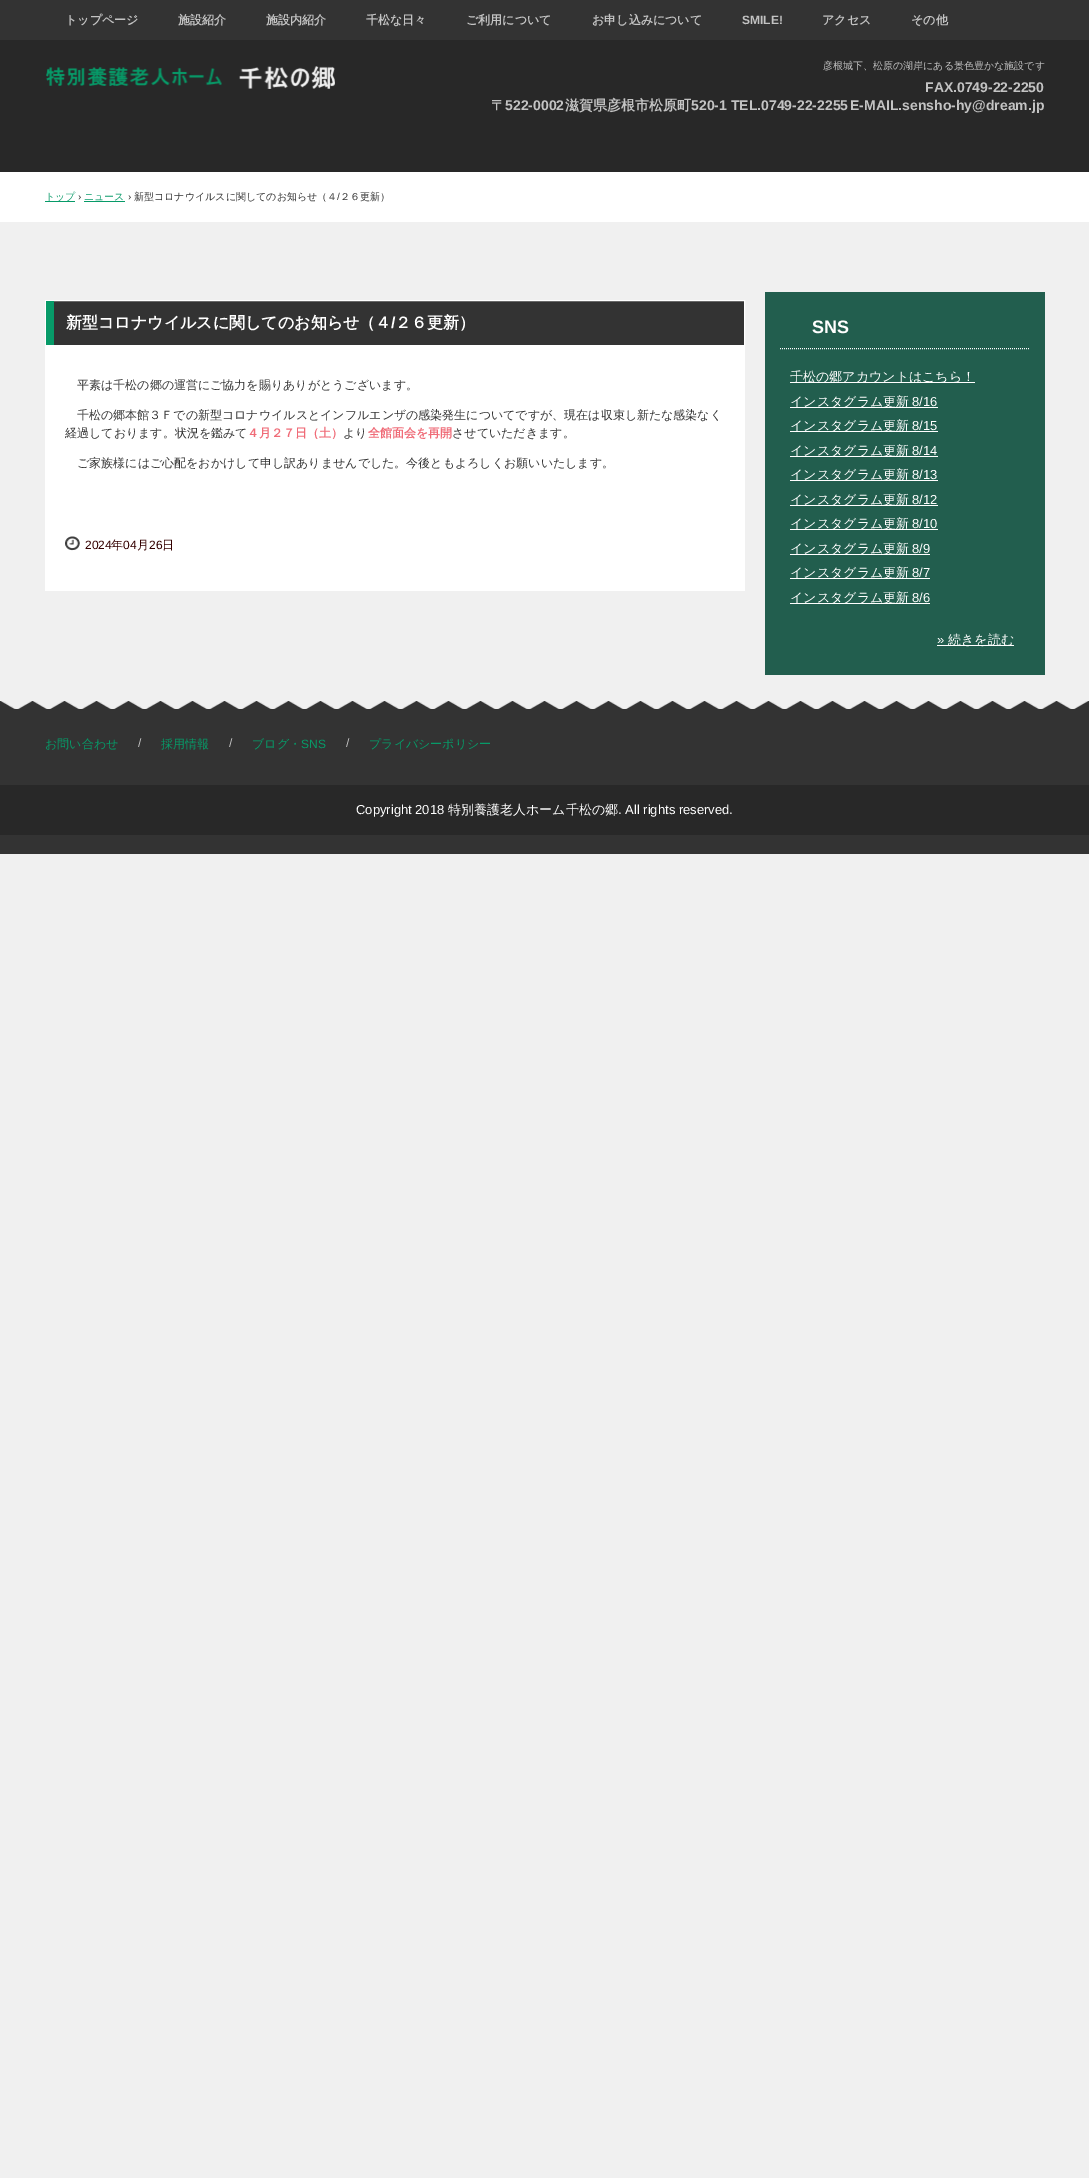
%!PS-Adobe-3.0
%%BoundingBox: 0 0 1089 2178
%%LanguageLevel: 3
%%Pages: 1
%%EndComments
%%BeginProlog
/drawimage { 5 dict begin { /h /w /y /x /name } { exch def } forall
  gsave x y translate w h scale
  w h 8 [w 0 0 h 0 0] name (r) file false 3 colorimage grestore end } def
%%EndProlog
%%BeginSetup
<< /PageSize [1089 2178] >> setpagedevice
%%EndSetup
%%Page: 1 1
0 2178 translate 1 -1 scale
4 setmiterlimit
0.941 setgray
0 0 1089 2178 rectfill
0.2 setgray
0 0 1089 40 rectfill
0.157 setgray
0 40 1089 132 rectfill
(images/1.raw) 46 66 289 23 drawimage
1 setgray
0 172 1089 50 rectfill
0.027 0.604 0.408 setrgbcolor
45 201 30 1 rectfill
84 201 41 1 rectfill
1 setgray
45 346 700 245 rectfill
0.2 setgray
54 301 690 44 rectfill
1 setgray
45.5 300.5 699 45 rectstroke
0.027 0.604 0.408 setrgbcolor
46 301 8 44 rectfill
(images/2.raw) 65 536 15 15 drawimage
0.133 0.369 0.306 setrgbcolor
765 292 280 383 rectfill
1 setgray
[1 1] 0 setdash
newpath 780 348.5 moveto 1030 348.5 lineto stroke
790 382 185 1 rectfill
790 407 148 1 rectfill
790 431 148 1 rectfill
790 456 148 1 rectfill
790 480 148 1 rectfill
790 505 148 1 rectfill
790 529 148 1 rectfill
790 554 140 1 rectfill
790 578 140 1 rectfill
790 603 140 1 rectfill
937 645 77 1 rectfill
0.2 setgray
0 709 1089 145 rectfill
(images/3.raw) 0 701 1089 8 drawimage
0.157 setgray
0 785 1089 50 rectfill
/WenQuanYiZenHei-Bold [12 0 0 -12 0 0] selectfont
0.765 setgray
65 24 moveto (トップページ) show
178 24 moveto (施設紹介) show
266 24 moveto (施設内紹介) show
366 24 moveto (千松な日々) show
466 24 moveto (ご利用について) show
592 24 moveto (お申し込みについて) show
/LiberationSans-Bold [12 0 0 -12 0 0] selectfont
742 24 moveto (SMILE!) show
/WenQuanYiZenHei-Bold [12 0 0 -12 0 0] selectfont
822 24 moveto (アクセス) show
911 24 moveto (その他) show
/WenQuanYiZenHei-Medium [10 0 0 -10 0 0] selectfont
823 69 moveto (彦根城下、松原の湖岸にある景色豊かな施設です) show
/WenQuanYiZenHei-Bold [14 0 0 -14 0 0] selectfont
491 110 moveto (〒) show
/LiberationSans-Bold [14 0 0 -14 0 0] selectfont
505 110 moveto (522-0002) show
/WenQuanYiZenHei-Bold [14 0 0 -14 0 0] selectfont
565 110 moveto (滋賀県彦根市松原町) show
/LiberationSans-Bold [14 0 0 -14 0 0] selectfont
691 110 moveto (520-1 TEL.0749-22-2255) show
925 92 moveto (FAX.0749-22-2250) show
850 110 moveto (E-MAIL.sensho-hy@dream.jp) show
/WenQuanYiZenHei-Medium [10 0 0 -10 0 0] selectfont
0.027 0.604 0.408 setrgbcolor
45 200 moveto (トップ) show
/LiberationSans-Regular [10 0 0 -10 0 0] selectfont
0.2 setgray
78 200 moveto (›) show
/WenQuanYiZenHei-Medium [10 0 0 -10 0 0] selectfont
0.027 0.604 0.408 setrgbcolor
84 200 moveto (ニュース) show
/LiberationSans-Regular [10 0 0 -10 0 0] selectfont
0.2 setgray
128 200 moveto (›) show
/WenQuanYiZenHei-Medium [10 0 0 -10 0 0] selectfont
134 200 moveto (新型コロナウイルスに関してのお知らせ（４ ２６更新）) show
/LiberationSans-Regular [10 0 0 -10 0 0] selectfont
337 200 moveto (/) show
/WenQuanYiZenHei-Bold [16 0 0 -16 0 0] selectfont
1 setgray
66 328 moveto (新型コロナウイルスに関してのお知らせ（４) show
/LiberationSans-Bold [16 0 0 -16 0 0] selectfont
391 328 moveto (/) show
/WenQuanYiZenHei-Bold [16 0 0 -16 0 0] selectfont
395 328 moveto (２６更新）) show
/WenQuanYiZenHei-Medium [12 0 0 -12 0 0] selectfont
0.2 setgray
77 389 moveto (平素は千松の郷の運営にご協力を賜りありがとうございます。) show
77 419 moveto (千松の郷本館３Ｆでの新型コロナウイルスとインフルエンザの感染発生についてですが、現在は収束し新たな感染なく) show
65 437 moveto (経過しております。状況を鑑みて) show
/WenQuanYiZenHei-Bold [12 0 0 -12 0 0] selectfont
0.941 0.42 0.467 setrgbcolor
247 437 moveto (４月２７日（土）) show
/WenQuanYiZenHei-Medium [12 0 0 -12 0 0] selectfont
0.2 setgray
343 437 moveto (より) show
/WenQuanYiZenHei-Bold [12 0 0 -12 0 0] selectfont
0.941 0.42 0.467 setrgbcolor
368 437 moveto (全館面会を再開) show
/WenQuanYiZenHei-Medium [12 0 0 -12 0 0] selectfont
0.2 setgray
452 437 moveto (させていただきます。) show
77 467 moveto (ご家族様にはご心配をおかけして申し訳ありませんでした。今後ともよろしくお願いいたします。) show
/LiberationSans-Regular [12 0 0 -12 0 0] selectfont
0.2 0 0 setrgbcolor
85 549 moveto (2024) show
/WenQuanYiZenHei-Medium [12 0 0 -12 0 0] selectfont
111 549 moveto (年) show
/LiberationSans-Regular [12 0 0 -12 0 0] selectfont
123 549 moveto (04) show
/WenQuanYiZenHei-Medium [12 0 0 -12 0 0] selectfont
137 549 moveto (月) show
/LiberationSans-Regular [12 0 0 -12 0 0] selectfont
149 549 moveto (26) show
/WenQuanYiZenHei-Medium [12 0 0 -12 0 0] selectfont
162 549 moveto (日) show
/LiberationSans-Bold [18 0 0 -18 0 0] selectfont
1 setgray
812 333 moveto (SNS) show
/WenQuanYiZenHei-Medium [13 0 0 -13 0 0] selectfont
790 381 moveto (千松の郷アカウントはこちら！) show
790 406 moveto (インスタグラム更新) show
/LiberationSans-Regular [13 0 0 -13 0 0] selectfont
912 406 moveto (8/16) show
/WenQuanYiZenHei-Medium [13 0 0 -13 0 0] selectfont
790 430 moveto (インスタグラム更新) show
/LiberationSans-Regular [13 0 0 -13 0 0] selectfont
912 430 moveto (8/15) show
/WenQuanYiZenHei-Medium [13 0 0 -13 0 0] selectfont
790 455 moveto (インスタグラム更新) show
/LiberationSans-Regular [13 0 0 -13 0 0] selectfont
912 455 moveto (8/14) show
/WenQuanYiZenHei-Medium [13 0 0 -13 0 0] selectfont
790 479 moveto (インスタグラム更新) show
/LiberationSans-Regular [13 0 0 -13 0 0] selectfont
912 479 moveto (8/13) show
/WenQuanYiZenHei-Medium [13 0 0 -13 0 0] selectfont
790 504 moveto (インスタグラム更新) show
/LiberationSans-Regular [13 0 0 -13 0 0] selectfont
912 504 moveto (8/12) show
/WenQuanYiZenHei-Medium [13 0 0 -13 0 0] selectfont
790 528 moveto (インスタグラム更新) show
/LiberationSans-Regular [13 0 0 -13 0 0] selectfont
912 528 moveto (8/10) show
/WenQuanYiZenHei-Medium [13 0 0 -13 0 0] selectfont
790 553 moveto (インスタグラム更新) show
/LiberationSans-Regular [13 0 0 -13 0 0] selectfont
912 553 moveto (8/9) show
/WenQuanYiZenHei-Medium [13 0 0 -13 0 0] selectfont
790 577 moveto (インスタグラム更新) show
/LiberationSans-Regular [13 0 0 -13 0 0] selectfont
912 577 moveto (8/7) show
/WenQuanYiZenHei-Medium [13 0 0 -13 0 0] selectfont
790 602 moveto (インスタグラム更新) show
/LiberationSans-Regular [13 0 0 -13 0 0] selectfont
912 602 moveto (8/6) show
937 644 moveto (») show
/WenQuanYiZenHei-Medium [13 0 0 -13 0 0] selectfont
948 644 moveto (続きを読む) show
/WenQuanYiZenHei-Medium [12 0 0 -12 0 0] selectfont
0.027 0.604 0.408 setrgbcolor
45 748 moveto (お問い合わせ) show
/LiberationSans-Regular [12 0 0 -12 0 0] selectfont
0.765 setgray
138 747 moveto (/) show
/WenQuanYiZenHei-Medium [12 0 0 -12 0 0] selectfont
0.027 0.604 0.408 setrgbcolor
161 748 moveto (採用情報) show
/LiberationSans-Regular [12 0 0 -12 0 0] selectfont
0.765 setgray
229 747 moveto (/) show
/WenQuanYiZenHei-Medium [12 0 0 -12 0 0] selectfont
0.027 0.604 0.408 setrgbcolor
252 748 moveto (ブログ・) show
/LiberationSans-Regular [12 0 0 -12 0 0] selectfont
301 748 moveto (SNS) show
0.765 setgray
346 747 moveto (/) show
/WenQuanYiZenHei-Medium [12 0 0 -12 0 0] selectfont
0.027 0.604 0.408 setrgbcolor
369 748 moveto (プライバシーポリシー) show
/LiberationSans-Regular [13 0 0 -13 0 0] selectfont
1 setgray
356 814 moveto (Copyright 2018) show
/WenQuanYiZenHei-Medium [13 0 0 -13 0 0] selectfont
448 814 moveto (特別養護老人ホーム千松の郷) show
/LiberationSans-Regular [13 0 0 -13 0 0] selectfont
618 814 moveto (. All rights reserved.) show
showpage
%%EOF
